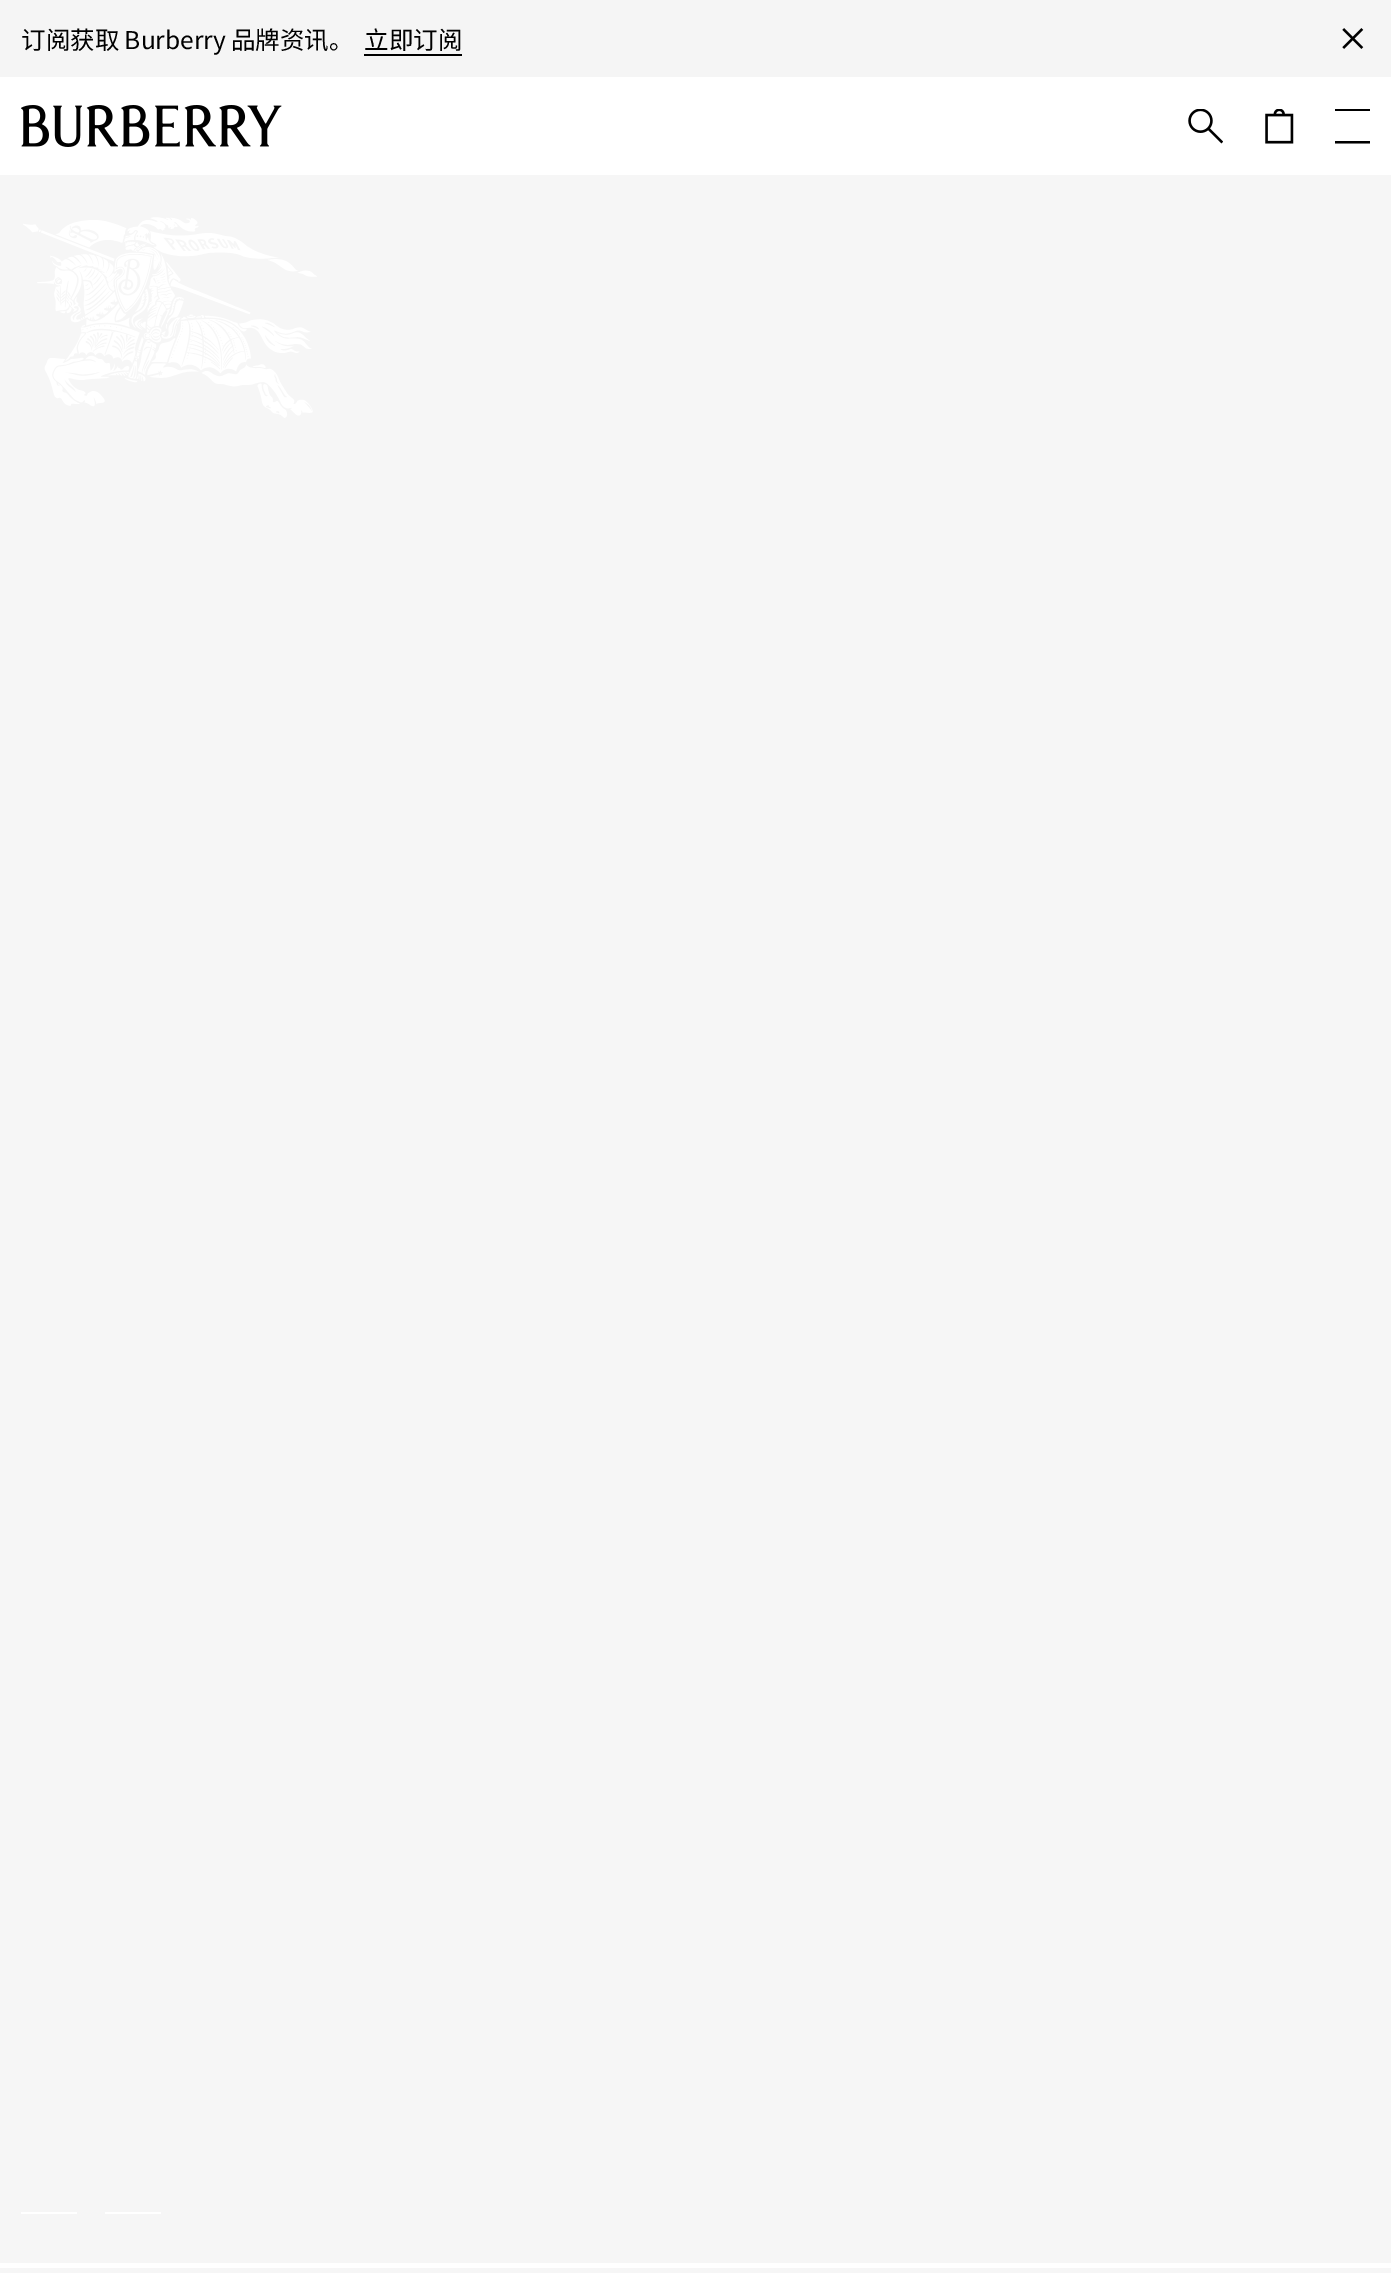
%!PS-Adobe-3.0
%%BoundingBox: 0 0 1391 2273
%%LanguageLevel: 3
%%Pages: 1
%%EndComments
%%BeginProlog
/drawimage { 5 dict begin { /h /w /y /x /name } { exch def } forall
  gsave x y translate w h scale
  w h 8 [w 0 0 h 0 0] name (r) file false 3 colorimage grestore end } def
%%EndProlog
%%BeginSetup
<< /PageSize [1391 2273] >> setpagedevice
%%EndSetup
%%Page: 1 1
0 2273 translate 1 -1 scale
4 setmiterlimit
1 setgray
0 0 1391 2273 rectfill
0.961 setgray
0 0 1391 77 rectfill
0 setgray
364 54 98 2 rectfill
(images/1.raw) 1342 28 22 21 drawimage
(images/2.raw) 21 105 261 42 drawimage
(images/3.raw) 1188 109 35 35 drawimage
(images/4.raw) 1265 109 29 35 drawimage
gsave
1335 109 35 35 rectclip
newpath 1335 111 moveto 1370 111 lineto 1370 108.5 lineto 1335 108.5 lineto closepath 1335 143.5 moveto 1370 143.5 lineto 1370 141 lineto 1335 141 lineto closepath eofill
grestore
0.965 setgray
0 175 1391 2088 rectfill
1 setgray
21 2212 56 2 rectfill
105 2212 56 2 rectfill
0.965 setgray
0 2268 1391 5 rectfill
(images/5.raw) 23 217 294 201 drawimage
/NotoSansSC-Regular [24.5 0 0 -24.5 0 0] selectfont
0 setgray
21 49 moveto (订阅获取 Burberry 品牌资讯。) show
364 49 moveto (立即订阅) show
showpage
%%EOF
